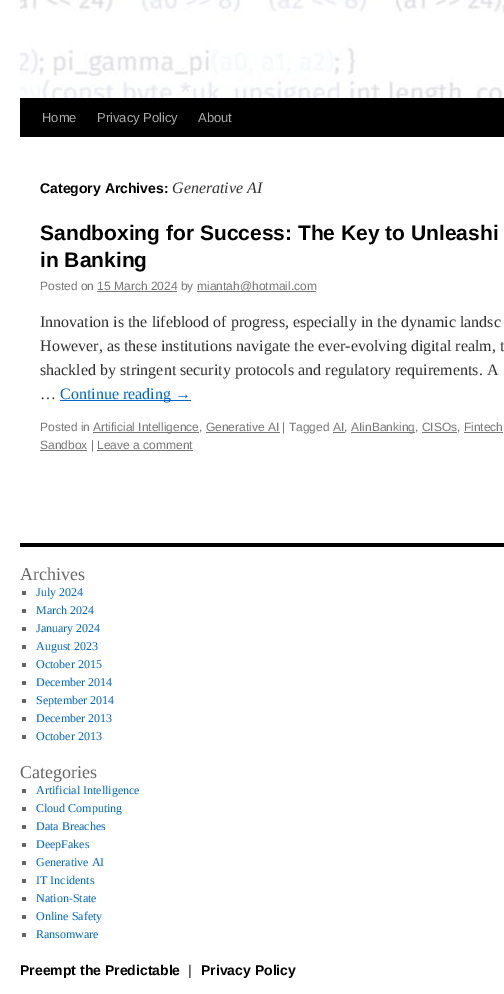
%!PS-Adobe-3.0
%%BoundingBox: 0 0 504 994
%%LanguageLevel: 3
%%Pages: 1
%%EndComments
%%BeginProlog
/drawimage { 5 dict begin { /h /w /y /x /name } { exch def } forall
  gsave x y translate w h scale
  w h 8 [w 0 0 h 0 0] name (r) file false 3 colorimage grestore end } def
%%EndProlog
%%BeginSetup
<< /PageSize [504 994] >> setpagedevice
%%EndSetup
%%Page: 1 1
0 994 translate 1 -1 scale
4 setmiterlimit
1 setgray
0 0 504 994 rectfill
0 setgray
20 98 484 39 rectfill
(images/1.raw) 20 0 484 98 drawimage
0.467 setgray
197 291 119 1 rectfill
97 291 80 1 rectfill
0 0.4 0.8 setrgbcolor
60 400 131 1 rectfill
0.467 setgray
93 432 106 1 rectfill
206 432 74 1 rectfill
333 432 12 1 rectfill
351 432 64 1 rectfill
422 432 35 1 rectfill
464 432 39 1 rectfill
40 450 47 1 rectfill
97 450 96 1 rectfill
0 setgray
20 543 484 4 rectfill
0.4 setgray
22 591 4 4 rectfill
22 609 4 4 rectfill
22 627 4 4 rectfill
22 645 4 4 rectfill
22 663 4 4 rectfill
22 681 4 4 rectfill
22 699 4 4 rectfill
22 717 4 4 rectfill
22 735 4 4 rectfill
22 789 4 4 rectfill
22 807 4 4 rectfill
22 825 4 4 rectfill
22 843 4 4 rectfill
22 861 4 4 rectfill
22 879 4 4 rectfill
22 897 4 4 rectfill
22 915 4 4 rectfill
22 933 4 4 rectfill
/LiberationSans-Regular [13 0 0 -13 0 0] selectfont
0.667 setgray
42 122 moveto (Home) show
97 122 moveto (Privacy Policy) show
198 122 moveto (About) show
/LiberationSans-Bold [14 0 0 -14 0 0] selectfont
0 setgray
40 193 moveto (Category Archives:) show
/LiberationSerif-Italic [16 0 0 -16 0 0] selectfont
0.2 setgray
172 193 moveto (Generative AI) show
/LiberationSans-Bold [21 0 0 -21 0 0] selectfont
0 setgray
40 240 moveto (Sandboxing for Success: The Key to Unleashi) show
40 267 moveto (in Banking) show
/LiberationSans-Regular [12 0 0 -12 0 0] selectfont
0.467 setgray
40 290 moveto (Posted on 15 March 2024 by) show
197 290 moveto (miantah@hotmail.com) show
/LiberationSerif-Regular [16 0 0 -16 0 0] selectfont
0.2 setgray
40 327 moveto (Innovation is the lifeblood of progress, especially in the dynamic landsc) show
40 351 moveto (However, as these institutions navigate the ever-evolving digital realm, t) show
40 375 moveto (shackled by stringent security protocols and regulatory requirements. A) show
40 399 moveto (…) show
0 0.4 0.8 setrgbcolor
60 399 moveto (Continue reading →) show
/LiberationSans-Regular [12 0 0 -12 0 0] selectfont
0.467 setgray
40 431 moveto (Posted in) show
93 431 moveto (Artificial Intelligence, Generative AI | Tagged AI,) show
351 431 moveto (AIinBanking, CISOs, Fintech) show
40 449 moveto (Sandbox | Leave a comment) show
/LiberationSerif-Regular [18 0 0 -18 0 0] selectfont
0.4 setgray
20 580 moveto (Archives) show
/LiberationSerif-Regular [12 0 0 -12 0 0] selectfont
0 0.4 0.8 setrgbcolor
36 596 moveto (July 2024) show
36 614 moveto (March 2024) show
36 632 moveto (January 2024) show
36 650 moveto (August 2023) show
36 668 moveto (October 2015) show
36 686 moveto (December 2014) show
36 704 moveto (September 2014) show
36 722 moveto (December 2013) show
36 740 moveto (October 2013) show
/LiberationSerif-Regular [18 0 0 -18 0 0] selectfont
0.4 setgray
20 778 moveto (Categories) show
/LiberationSerif-Regular [12 0 0 -12 0 0] selectfont
0 0.4 0.8 setrgbcolor
36 794 moveto (Artificial Intelligence) show
36 812 moveto (Cloud Computing) show
36 830 moveto (Data Breaches) show
36 848 moveto (DeepFakes) show
36 866 moveto (Generative AI) show
36 884 moveto (IT Incidents) show
36 902 moveto (Nation-State) show
36 920 moveto (Online Safety) show
36 938 moveto (Ransomware) show
/LiberationSans-Bold [14 0 0 -14 0 0] selectfont
0 setgray
20 975 moveto (Preempt the Predictable) show
0.4 setgray
188 975 moveto (|) show
0 setgray
201 975 moveto (Privacy Policy) show
showpage
%%EOF
